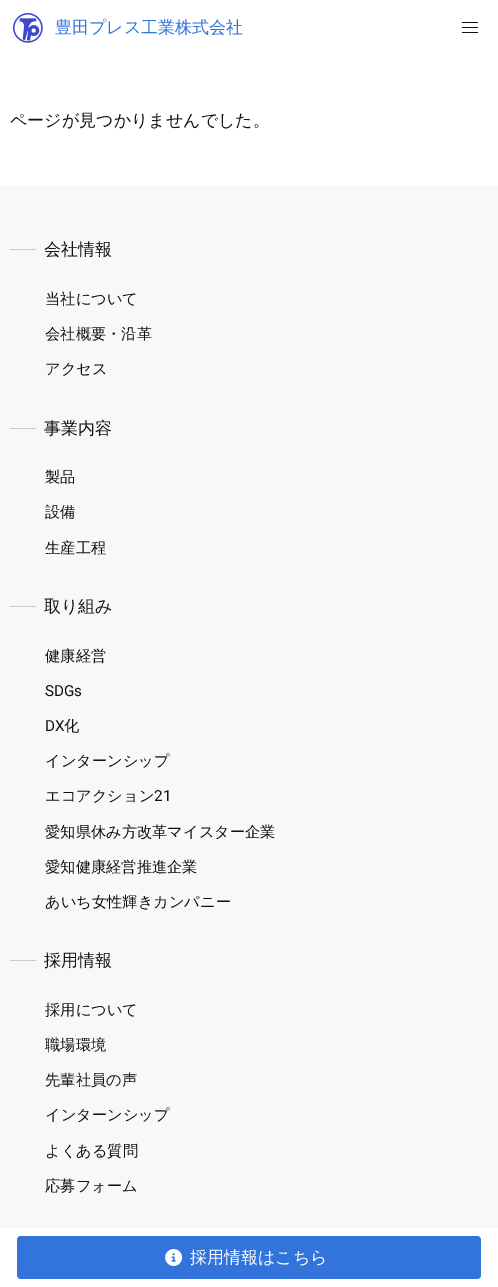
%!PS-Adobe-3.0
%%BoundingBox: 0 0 498 1287
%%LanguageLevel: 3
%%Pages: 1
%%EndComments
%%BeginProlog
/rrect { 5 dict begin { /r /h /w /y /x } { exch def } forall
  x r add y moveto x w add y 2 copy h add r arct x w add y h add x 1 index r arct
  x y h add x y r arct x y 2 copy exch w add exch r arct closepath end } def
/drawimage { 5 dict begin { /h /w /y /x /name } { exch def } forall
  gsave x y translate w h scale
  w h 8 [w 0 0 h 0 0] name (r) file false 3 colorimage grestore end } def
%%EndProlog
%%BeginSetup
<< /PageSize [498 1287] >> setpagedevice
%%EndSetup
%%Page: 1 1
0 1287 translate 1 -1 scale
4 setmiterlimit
1 setgray
0 0 498 1287 rectfill
0.973 setgray
0 186 498 1042 rectfill
(images/1.raw) 13 13 30 30 drawimage
0.067 setgray
462 22 16 1 rectfill
462 27 16 1 rectfill
462 32 16 1 rectfill
0.8 setgray
10 249 26 1 rectfill
10 428 26 1 rectfill
10 606 26 1 rectfill
10 960 26 1 rectfill
0.196 0.451 0.863 setrgbcolor
17 1236 464 43 4 rrect fill
(images/2.raw) 165 1249 18 17 drawimage
/WenQuanYiZenHei-Medium [17 0 0 -17 0 0] selectfont
55 33 moveto (豊田プレス工業株式会社) show
0.067 setgray
10 126 moveto (ページが見つかりませんでした。) show
44 255 moveto (会社情報) show
/WenQuanYiZenHei-Medium [15.25 0 0 -15.25 0 0] selectfont
45 304 moveto (当社について) show
45 339 moveto (会社概要・沿革) show
45 374 moveto (アクセス) show
/WenQuanYiZenHei-Medium [17 0 0 -17 0 0] selectfont
44 434 moveto (事業内容) show
/WenQuanYiZenHei-Medium [15.25 0 0 -15.25 0 0] selectfont
45 482 moveto (製品) show
45 517 moveto (設備) show
45 553 moveto (生産工程) show
/WenQuanYiZenHei-Medium [17 0 0 -17 0 0] selectfont
44 612 moveto (取り組み) show
/WenQuanYiZenHei-Medium [15.25 0 0 -15.25 0 0] selectfont
45 661 moveto (健康経営) show
/Roboto-Regular [15.25 0 0 -15.25 0 0] selectfont
45 696 moveto (SDGs) show
45 731 moveto (DX) show
/WenQuanYiZenHei-Medium [15.25 0 0 -15.25 0 0] selectfont
64 731 moveto (化) show
45 766 moveto (インターンシップ) show
45 801 moveto (エコアクション) show
/Roboto-Regular [15.25 0 0 -15.25 0 0] selectfont
154 801 moveto (21) show
/WenQuanYiZenHei-Medium [15.25 0 0 -15.25 0 0] selectfont
45 837 moveto (愛知県休み方改革マイスター企業) show
45 872 moveto (愛知健康経営推進企業) show
45 907 moveto (あいち女性輝きカンパニー) show
/WenQuanYiZenHei-Medium [17 0 0 -17 0 0] selectfont
44 966 moveto (採用情報) show
/WenQuanYiZenHei-Medium [15.25 0 0 -15.25 0 0] selectfont
45 1015 moveto (採用について) show
45 1050 moveto (職場環境) show
45 1085 moveto (先輩社員の声) show
45 1120 moveto (インターンシップ) show
45 1156 moveto (よくある質問) show
45 1191 moveto (応募フォーム) show
/WenQuanYiZenHei-Medium [17 0 0 -17 0 0] selectfont
1 setgray
190 1263 moveto (採用情報はこちら) show
showpage
%%EOF
